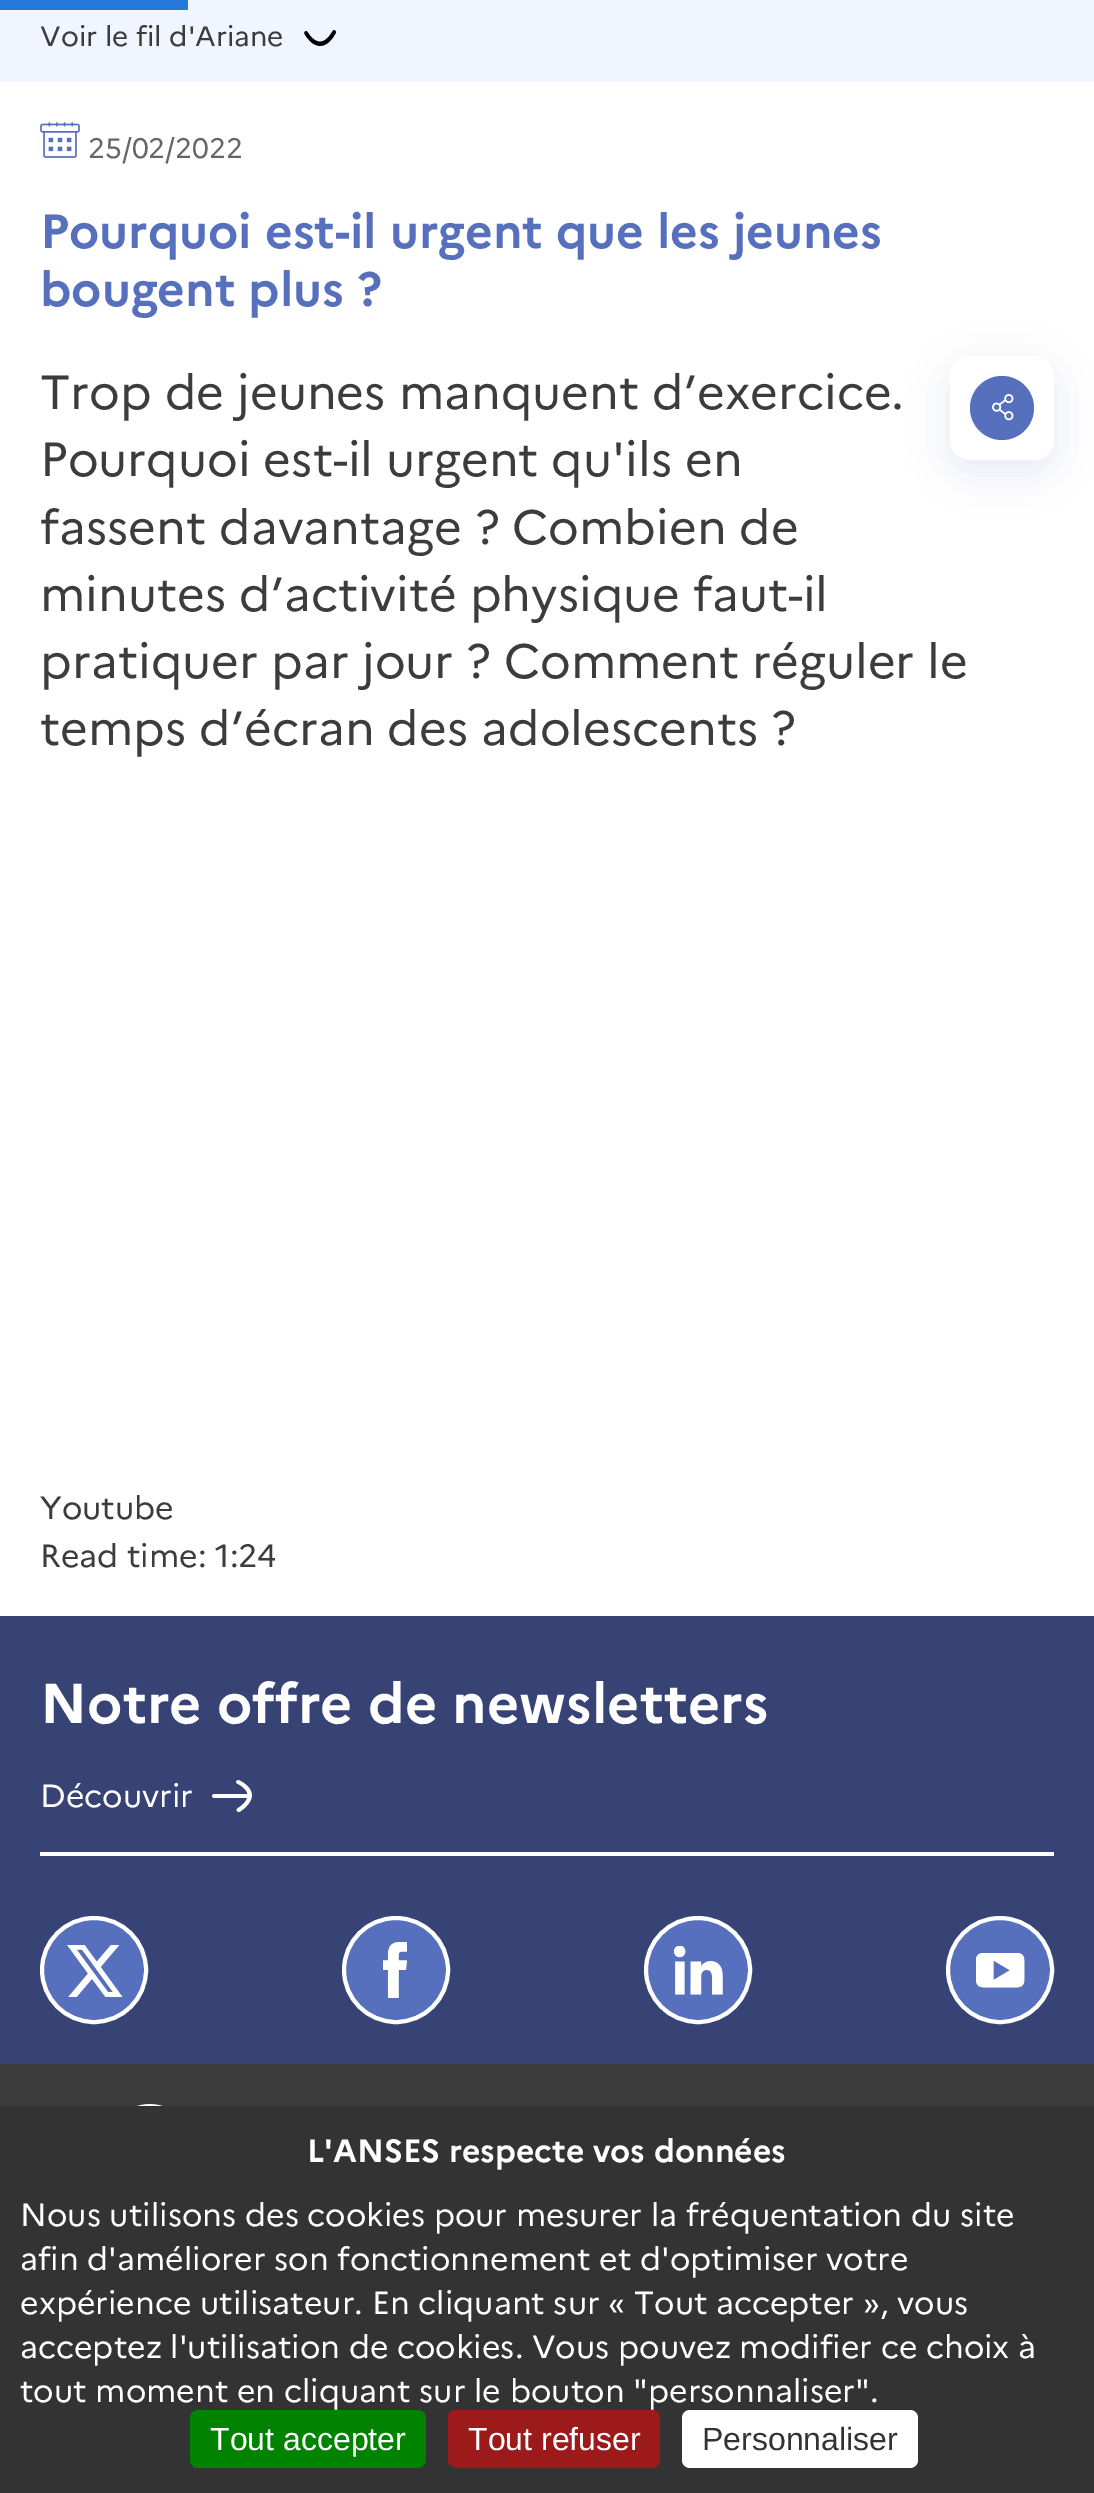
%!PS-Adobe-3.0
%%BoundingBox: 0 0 1094 2493
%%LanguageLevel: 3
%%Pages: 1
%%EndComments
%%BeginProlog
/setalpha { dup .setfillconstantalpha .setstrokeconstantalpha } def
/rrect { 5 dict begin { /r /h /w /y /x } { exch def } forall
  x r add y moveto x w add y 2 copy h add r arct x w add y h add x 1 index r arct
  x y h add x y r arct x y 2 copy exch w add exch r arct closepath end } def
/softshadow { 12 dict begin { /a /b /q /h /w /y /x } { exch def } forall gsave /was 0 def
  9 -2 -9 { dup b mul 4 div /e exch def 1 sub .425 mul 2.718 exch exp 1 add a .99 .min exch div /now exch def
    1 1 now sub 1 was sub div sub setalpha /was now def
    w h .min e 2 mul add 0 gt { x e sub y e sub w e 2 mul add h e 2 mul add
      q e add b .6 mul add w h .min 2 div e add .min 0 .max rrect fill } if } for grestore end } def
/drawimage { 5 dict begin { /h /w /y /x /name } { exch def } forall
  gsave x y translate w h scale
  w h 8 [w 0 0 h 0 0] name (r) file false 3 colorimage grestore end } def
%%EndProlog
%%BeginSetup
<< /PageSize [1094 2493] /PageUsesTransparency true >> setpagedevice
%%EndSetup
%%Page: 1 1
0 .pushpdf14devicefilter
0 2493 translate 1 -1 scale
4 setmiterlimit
0.212 0.263 0.455 setrgbcolor
0 0 1094 2493 rectfill
0.945 0.961 1 setrgbcolor
0 0 1094 82 rectfill
0.145 0.475 0.851 setrgbcolor
0 0 188 10 rectfill
(images/1.raw) 304 30 32 16 drawimage
1 setgray
0 82 1094 1534 rectfill
(images/2.raw) 40 122 40 36 drawimage
0.341 0.439 0.745 setrgbcolor
950 368 104 104 20 20 0.15 softshadow
1 setgray
950 356 104 104 20 rrect fill
0.341 0.439 0.745 setrgbcolor
newpath 1002 408 32 0 360 arc closepath fill
(images/3.raw) 992 394 22 27 drawimage
1 setgray
40 1852 1014 4 rectfill
(images/4.raw) 212 1780 40 32 drawimage
0.341 0.439 0.745 setrgbcolor
newpath 94 1970 52 0 360 arc closepath gsave fill grestore
1 setgray
4 setlinewidth
stroke
(images/5.raw) 67 1945 56 52 drawimage
0.341 0.439 0.745 setrgbcolor
newpath 396 1970 52 0 360 arc closepath gsave fill grestore
1 setgray
stroke
(images/6.raw) 383 1942 24 56 drawimage
0.341 0.439 0.745 setrgbcolor
newpath 698 1970 52 0 360 arc closepath gsave fill grestore
1 setgray
stroke
(images/7.raw) 674 1946 49 49 drawimage
0.341 0.439 0.745 setrgbcolor
newpath 1000 1970 52 0 360 arc closepath gsave fill grestore
1 setgray
stroke
(images/8.raw) 976 1953 49 35 drawimage
0.235 setgray
0 2064 1094 42 rectfill
(images/9.raw) 137 2104 26 2 drawimage
0.2 setgray
0 2106 1094 387 rectfill
0 0.514 0 setrgbcolor
190 2410 236 58 8 rrect fill
0.612 0.102 0.102 setrgbcolor
448 2410 212 58 8 rrect fill
1 setgray
682 2410 236 58 8 rrect fill
/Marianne-Regular [28 0 0 -28 0 0] selectfont
0.235 setgray
40 46 moveto (Voir le fil d'Ariane) show
0.396 0.4 0.412 setrgbcolor
88 158 moveto (25/02/2022) show
/Marianne-Bold [48 0 0 -48 0 0] selectfont
0.341 0.439 0.745 setrgbcolor
40 248 moveto (Pourquoi est-il urgent que les jeunes) show
40 306 moveto (bougent plus ?) show
/Marianne-Regular [48 0 0 -48 0 0] selectfont
0.235 setgray
40 409 moveto (Trop de jeunes manquent d’exercice.) show
40 476 moveto (Pourquoi est-il urgent qu'ils en) show
40 544 moveto (fassent davantage ? Combien de) show
40 611 moveto (minutes d’activité physique faut-il) show
40 678 moveto (pratiquer par jour ? Comment réguler le) show
40 745 moveto (temps d’écran des adolescents ?) show
/Marianne-Regular [32 0 0 -32 0 0] selectfont
40 1519 moveto (Youtube) show
40 1567 moveto (Read time: 1:24) show
/Marianne-Bold [56 0 0 -56 0 0] selectfont
1 setgray
40 1723 moveto (Notre offre de newsletters) show
/Marianne-Regular [32 0 0 -32 0 0] selectfont
40 1807 moveto (Découvrir) show
/Marianne-Bold [32 0 0 -32 0 0] selectfont
307 2162 moveto (L'ANSES respecte vos données) show
/Marianne-Regular [32 0 0 -32 0 0] selectfont
20 2226 moveto (Nous utilisons des cookies pour mesurer la fréquentation du site) show
20 2270 moveto (afin d'améliorer son fonctionnement et d'optimiser votre) show
20 2314 moveto (expérience utilisateur. En cliquant sur « Tout accepter », vous) show
20 2358 moveto (acceptez l'utilisation de cookies. Vous pouvez modifier ce choix à) show
20 2402 moveto (tout moment en cliquant sur le bouton "personnaliser".) show
/LiberationSans-Regular [32 0 0 -32 0 0] selectfont
210 2450 moveto (Tout accepter) show
468 2450 moveto (Tout refuser) show
0.2 setgray
702 2450 moveto (Personnaliser) show
.poppdf14devicefilter showpage
%%EOF
